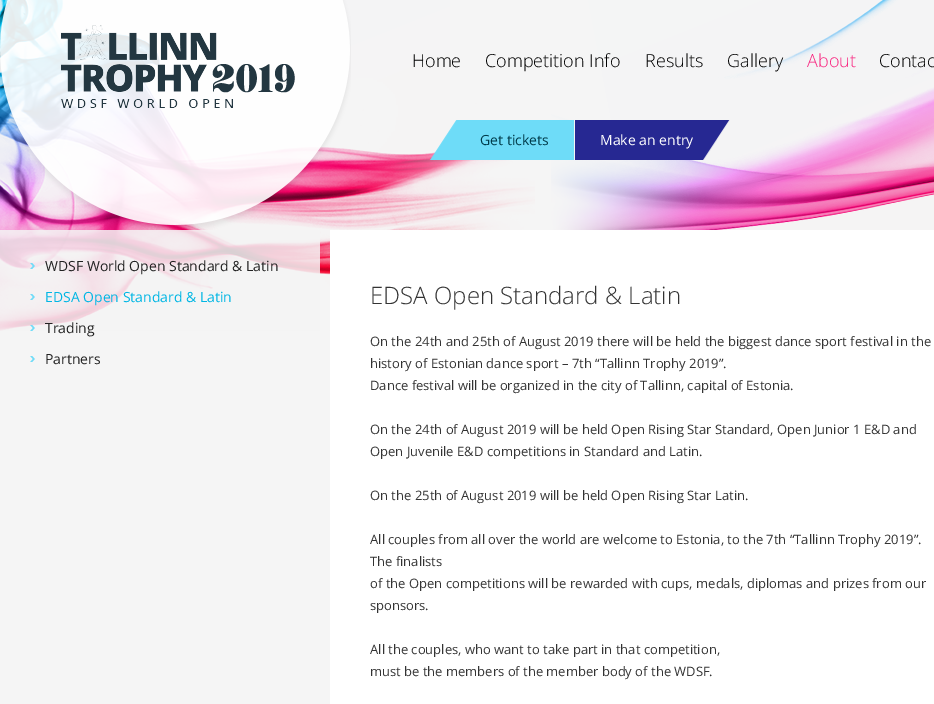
%!PS-Adobe-3.0
%%BoundingBox: 0 0 934 704
%%LanguageLevel: 3
%%Pages: 1
%%EndComments
%%BeginProlog
/setalpha { dup .setfillconstantalpha .setstrokeconstantalpha } def
/drawimage { 5 dict begin { /h /w /y /x /name } { exch def } forall
  gsave x y translate w h scale
  w h 8 [w 0 0 h 0 0] name (r) file false 3 colorimage grestore end } def
%%EndProlog
%%BeginSetup
<< /PageSize [934 704] /PageUsesTransparency true >> setpagedevice
%%EndSetup
%%Page: 1 1
0 .pushpdf14devicefilter
0 704 translate 1 -1 scale
4 setmiterlimit
0.961 setgray
0 0 934 704 rectfill
(images/1.raw) 0 0 535 331 drawimage
(images/2.raw) 551 0 383 230 drawimage
(images/3.raw) 0 0 351 230 drawimage
(images/4.raw) 61 25 234 83 drawimage
(images/5.raw) 430 120 144 40 drawimage
(images/6.raw) 575 120 155 40 drawimage
0.85 setalpha
0.957 setgray
0 230 320 101 rectfill
1 setalpha
(images/7.raw) 30 263 5 6 drawimage
(images/8.raw) 30 294 5 6 drawimage
(images/9.raw) 30 325 5 6 drawimage
(images/10.raw) 30 356 5 6 drawimage
1 setgray
330 230 604 474 rectfill
/OpenSans-Light [18 0 0 -18 0 0] selectfont
0 setgray
412 67 moveto (Home) show
485 67 moveto (Competition Info) show
645 67 moveto (Results) show
727 67 moveto (Gallery) show
0.973 0.137 0.494 setrgbcolor
807 67 moveto (About) show
0 setgray
879 67 moveto (Contac) show
/OpenSans-Regular [14 0 0 -14 0 0] selectfont
0 0.231 0.29 setrgbcolor
480 145 moveto (Get tickets) show
1 setgray
600 145 moveto (Make an entry) show
0.133 setgray
45 271 moveto (WDSF World Open Standard & Latin) show
0 0.714 0.894 setrgbcolor
45 302 moveto (EDSA Open Standard & Latin) show
0.133 setgray
45 333 moveto (Trading) show
45 364 moveto (Partners) show
/OpenSans-Light [24 0 0 -24 0 0] selectfont
0.2 setgray
370 304 moveto (EDSA Open Standard & Latin) show
/OpenSans-Regular [13 0 0 -13 0 0] selectfont
370 346 moveto (On the 24th and 25th of August 2019 there will be held the biggest dance sport festival in the) show
370 368 moveto (history of Estonian dance sport – 7th “Tallinn Trophy 2019”.) show
370 390 moveto (Dance festival will be organized in the city of Tallinn, capital of Estonia.) show
370 434 moveto (On the 24th of August 2019 will be held Open Rising Star Standard, Open Junior 1 E&D and) show
370 456 moveto (Open Juvenile E&D competitions in Standard and Latin.) show
370 500 moveto (On the 25th of August 2019 will be held Open Rising Star Latin.) show
370 544 moveto (All couples from all over the world are welcome to Estonia, to the 7th “Tallinn Trophy 2019”.) show
370 566 moveto (The finalists) show
370 588 moveto (of the Open competitions will be rewarded with cups, medals, diplomas and prizes from our) show
370 610 moveto (sponsors.) show
370 654 moveto (All the couples, who want to take part in that competition,) show
370 676 moveto (must be the members of the member body of the WDSF.) show
.poppdf14devicefilter showpage
%%EOF
